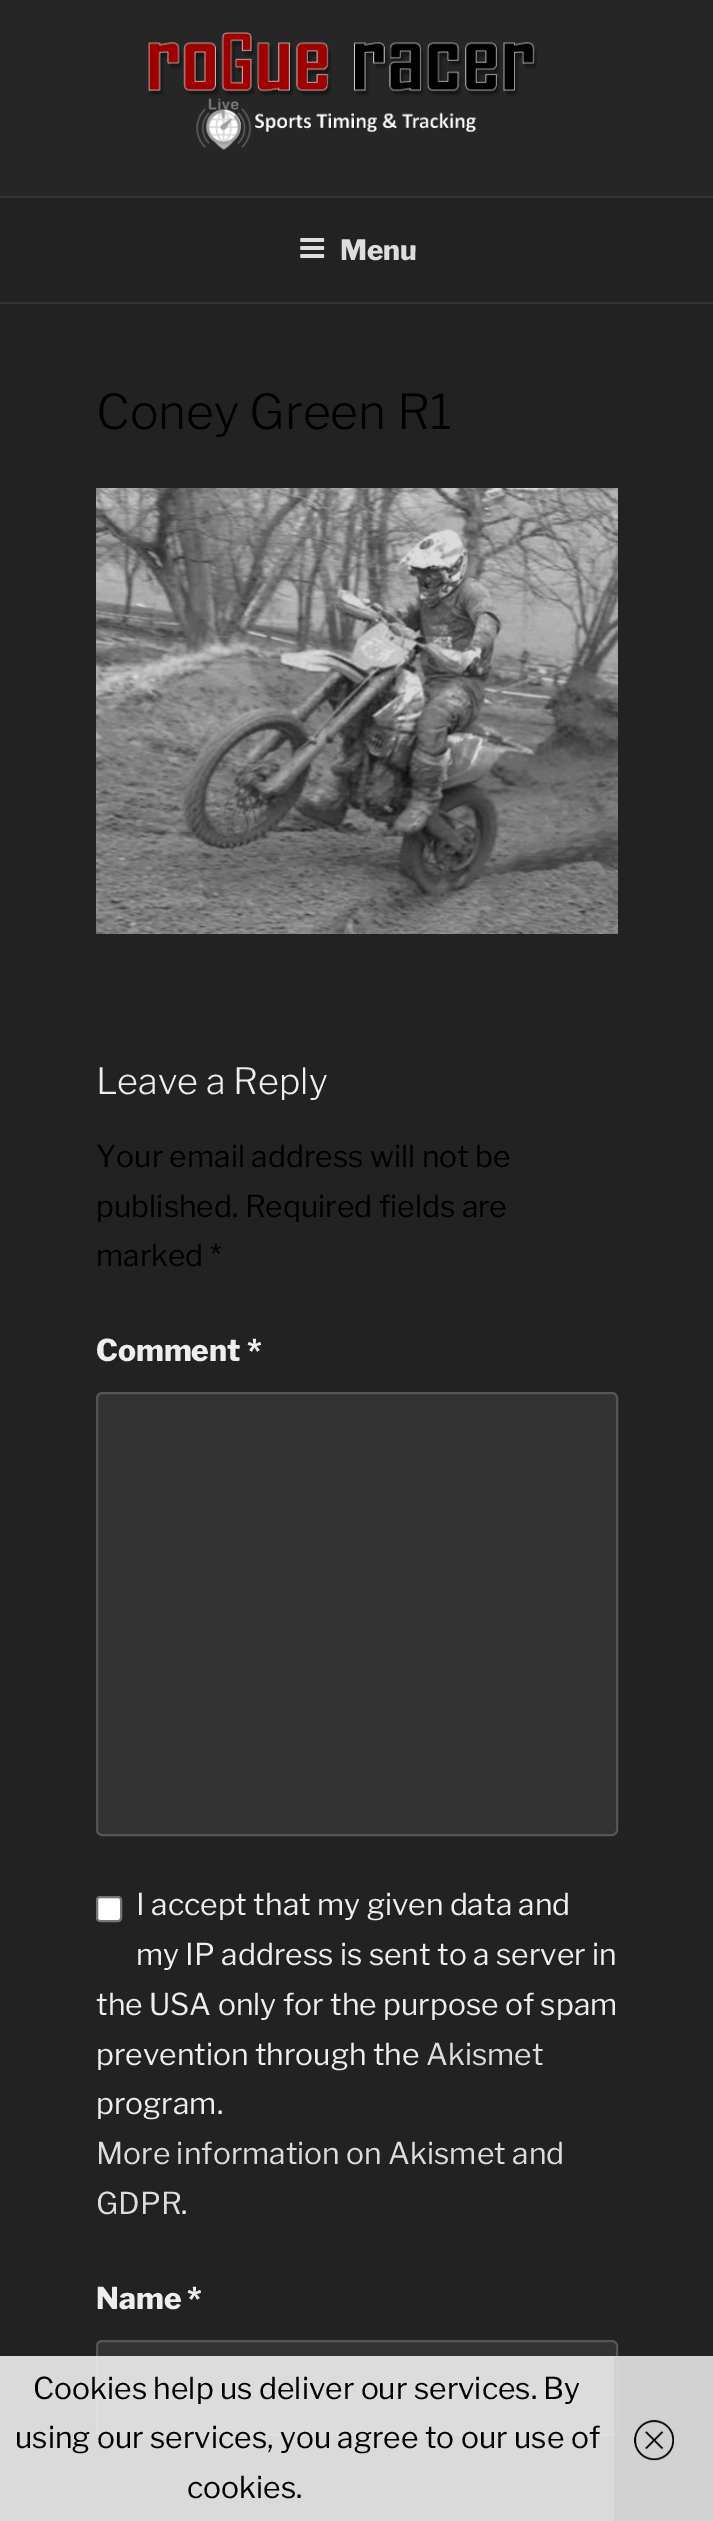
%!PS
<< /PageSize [713 2521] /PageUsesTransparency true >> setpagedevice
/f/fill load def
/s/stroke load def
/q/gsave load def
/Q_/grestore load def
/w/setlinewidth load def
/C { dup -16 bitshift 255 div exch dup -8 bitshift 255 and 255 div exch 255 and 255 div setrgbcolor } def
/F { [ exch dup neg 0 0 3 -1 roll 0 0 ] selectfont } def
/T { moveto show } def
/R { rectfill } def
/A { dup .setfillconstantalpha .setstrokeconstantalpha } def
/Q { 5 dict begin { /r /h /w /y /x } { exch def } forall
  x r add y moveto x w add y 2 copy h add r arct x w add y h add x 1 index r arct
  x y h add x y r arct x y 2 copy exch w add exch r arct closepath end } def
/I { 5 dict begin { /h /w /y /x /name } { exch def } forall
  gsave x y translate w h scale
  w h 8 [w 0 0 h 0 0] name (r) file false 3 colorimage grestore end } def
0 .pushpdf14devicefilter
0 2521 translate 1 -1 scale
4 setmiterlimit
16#222222 C
0 0 713 2521 R
16#262626 C
0 0 713 196 R
(1.rgb) 148 32 389 118 I
16#333333 C
0 196 713 2 R
0 302 713 2 R
(2.rgb) 300 238 25 20 I
/LibreFranklin-Thin 28 F
16#DDDDDD C
(Menu) 340 260 T
/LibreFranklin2-Thin 48 F
16#000000 C
(Coney Green R1) 96 429 T
(3.rgb) 96 488 522 446 I
/LibreFranklin2-Thin 36 F
16#EEEEEE C
(Leave a Reply) 96 1094 T
/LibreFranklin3-Thin 30 F
16#000000 C
(Your email address will not be) 96 1167 T
(published. Required fields are) 96 1217 T
(marked *) 96 1266 T
/LibreFranklin-Thin 30 F
16#EEEEEE C
(Comment *) 96 1361 T
16#333333 C
97 1393 520 442 5 Q q f Q_
16#555555 C
2 w
s
/LibreFranklin3-Thin 30 F
16#EEEEEE C
(I accept that my given data and) 136 1915 T
(my IP address is sent to a server in) 136 1965 T
(the USA only for the purpose of spam) 96 2015 T
(prevention through the) 96 2065 T
16#DDDDDD C
(Akismet) 426 2065 T
16#EEEEEE C
(program.) 96 2114 T
16#DDDDDD C
(More information on Akismet and) 96 2164 T
(GDPR) 96 2214 T
16#EEEEEE C
(.) 181 2214 T
16#FFFFFF C
97 1897 24 24 3 Q q f Q_
16#767676 C
s
/LibreFranklin-Thin 30 F
16#EEEEEE C
(Name *) 96 2309 T
16#333333 C
97 2341 520 94 5 Q q f Q_
16#555555 C
s
0.9 A
16#EEEEEE C
0 2356 713 165 R
/LibreFranklin3-Thin 30 F
1 A
16#000000 C
(Cookies help us deliver our services. By) 33 2399 T
(using our services, you agree to our use of) 15 2448 T
(cookies.) 187 2498 T
0.6 A
16#CCCCCC C
614 2356 99 165 R
1 A
(4.rgb) 634 2419 40 42 I
.poppdf14devicefilter showpage
